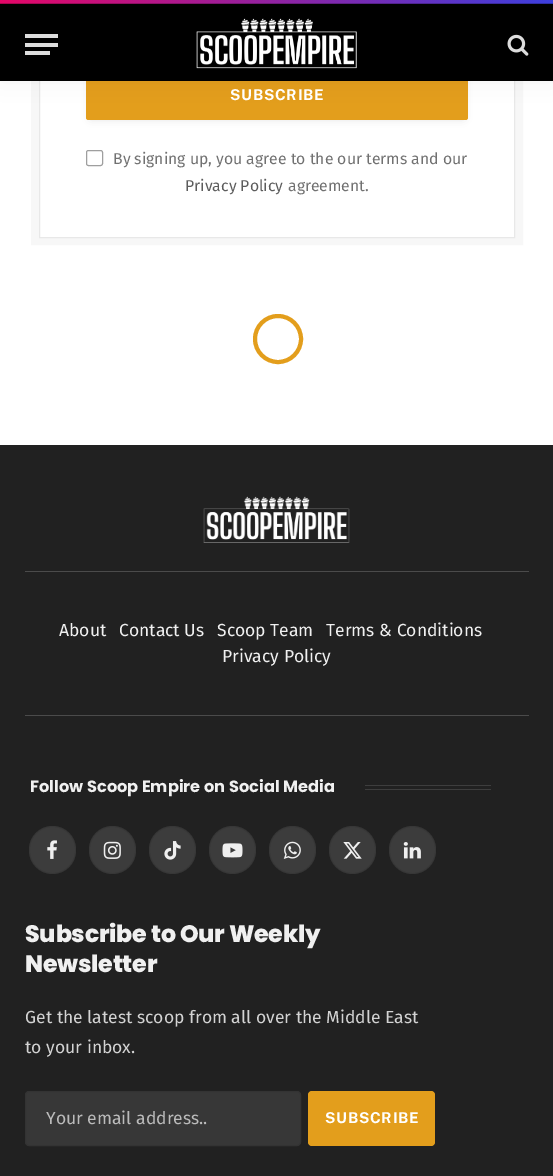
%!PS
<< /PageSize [553 1176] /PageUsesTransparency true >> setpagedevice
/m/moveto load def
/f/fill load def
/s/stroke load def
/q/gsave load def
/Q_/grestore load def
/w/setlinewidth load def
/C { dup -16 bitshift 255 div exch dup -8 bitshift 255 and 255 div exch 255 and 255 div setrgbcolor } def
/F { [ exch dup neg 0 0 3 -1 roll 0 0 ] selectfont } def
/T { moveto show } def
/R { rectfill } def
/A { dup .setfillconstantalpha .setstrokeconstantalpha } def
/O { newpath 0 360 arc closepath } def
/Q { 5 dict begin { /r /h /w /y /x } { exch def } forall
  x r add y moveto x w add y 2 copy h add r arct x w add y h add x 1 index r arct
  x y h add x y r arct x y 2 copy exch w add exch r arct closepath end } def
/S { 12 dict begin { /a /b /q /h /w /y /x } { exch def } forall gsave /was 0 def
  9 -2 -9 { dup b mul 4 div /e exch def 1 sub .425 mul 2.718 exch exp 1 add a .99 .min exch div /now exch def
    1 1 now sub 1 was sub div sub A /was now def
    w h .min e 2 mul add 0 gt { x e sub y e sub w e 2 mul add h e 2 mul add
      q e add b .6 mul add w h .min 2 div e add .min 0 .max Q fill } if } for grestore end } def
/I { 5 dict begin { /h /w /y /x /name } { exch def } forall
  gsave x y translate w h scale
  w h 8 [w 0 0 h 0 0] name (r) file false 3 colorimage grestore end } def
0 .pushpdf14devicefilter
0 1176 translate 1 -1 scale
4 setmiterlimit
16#FFFFFF C
0 0 553 1176 R
16#F7F7F7 C
8 w
35 -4 484 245 rectstroke
16#E8E8E8 C
1 w
39.5 -.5 475 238 rectstroke
16#000000 C
91 78 372 40 0 4.5 .16 S
16#E39E1C C
86 70 382 50 2.5 Q f
16#000000 C
0 0 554 81 0 12.5 .05 S
0 3 553 78 R
(1.rgb) 0 0 553 4 I
16#DDDDDD C
25 51 25 4 R
25 34 33 4 R
25 43 33 4 R
(2.rgb) 196 18 161 51 I
(3.rgb) 507 34 22 22 I
/PublicSans-Thin 15 F
16#FFFFFF C
230 100 m .75 0 (SUBSCRIBE) ashow
16#9F9F9F C
86.5 150.5 16 15 2 Q s
/FiraSans-Regular 15.75 F
16#717171 C
(By signing up, you agree to the our terms and our) 113 164 T
16#5C5C5C C
(Privacy Policy) 185 191 T
16#717171 C
(agreement.) 288 191 T
16#E39E1C C
4 w
278 339 23 O s
16#212121 C
0 445 553 731 R
(4.rgb) 203 496 147 47 I
16#4B4B4B C
25 571 504 1 R
/FiraSans-Regular 17.5 F
16#F0F0F0 C
(About) 59 636 T
(Contact Us) 119 636 T
(Scoop Team) 217 636 T
(Terms & Conditions) 326 636 T
(Privacy Policy) 222 662 T
16#4B4B4B C
25 715 504 1 R
/Poppins-Bold 16.25 F
16#F0F0F0 C
(Follow Scoop Empire on Social Media) 30 792 T
16#3E3E3E C
365 785 126 1 R
365 789 126 1 R
16#3C3C3C C
29 826 47 48 23.5 Q f
0.09 A
16#000000 C
1 w
29.5 826.5 46 47 23 Q s
1 A
(5.rgb) 47 840 10 19 I
16#3C3C3C C
89 826 47 48 23.5 Q f
0.09 A
16#000000 C
89.5 826.5 46 47 23 Q s
1 A
(6.rgb) 103 841 18 18 I
16#3C3C3C C
149 826 47 48 23.5 Q f
0.09 A
16#000000 C
149.5 826.5 46 47 23 Q s
1 A
(7.rgb) 164 841 17 19 I
16#3C3C3C C
209 826 47 48 23.5 Q f
0.09 A
16#000000 C
209.5 826.5 46 47 23 Q s
1 A
(8.rgb) 222 843 21 15 I
16#3C3C3C C
269 826 47 48 23.5 Q f
0.09 A
16#000000 C
269.5 826.5 46 47 23 Q s
1 A
(9.rgb) 283 841 18 18 I
16#3C3C3C C
329 826 47 48 23.5 Q f
0.09 A
16#000000 C
329.5 826.5 46 47 23 Q s
1 A
(10.rgb) 343 842 19 17 I
16#3C3C3C C
389 826 47 48 23.5 Q f
0.09 A
16#000000 C
389.5 826.5 46 47 23 Q s
1 A
(11.rgb) 403 842 18 17 I
/Poppins-ExtraBold 23.75 F
16#F0F0F0 C
25 942 m -.25 0 (Subscribe to Our Weekly) ashow
25 972 m -.25 0 (Newsletter) ashow
/FiraSans-Regular 17.5 F
16#D3D3D3 C
(Get the latest scoop from all over the Middle East) 25 1023 T
(to your inbox.) 25 1053 T
16#373737 C
25.5 1091.5 275 54 3.5 Q q f Q_
16#333333 C
s
16#BBBBBB C
(Your email address..) 46 1124 T
16#E39E1C C
308 1091 127 55 4 Q f
/PublicSans-Thin 15 F
16#FFFFFF C
325 1123 m .75 0 (SUBSCRIBE) ashow
.poppdf14devicefilter showpage
